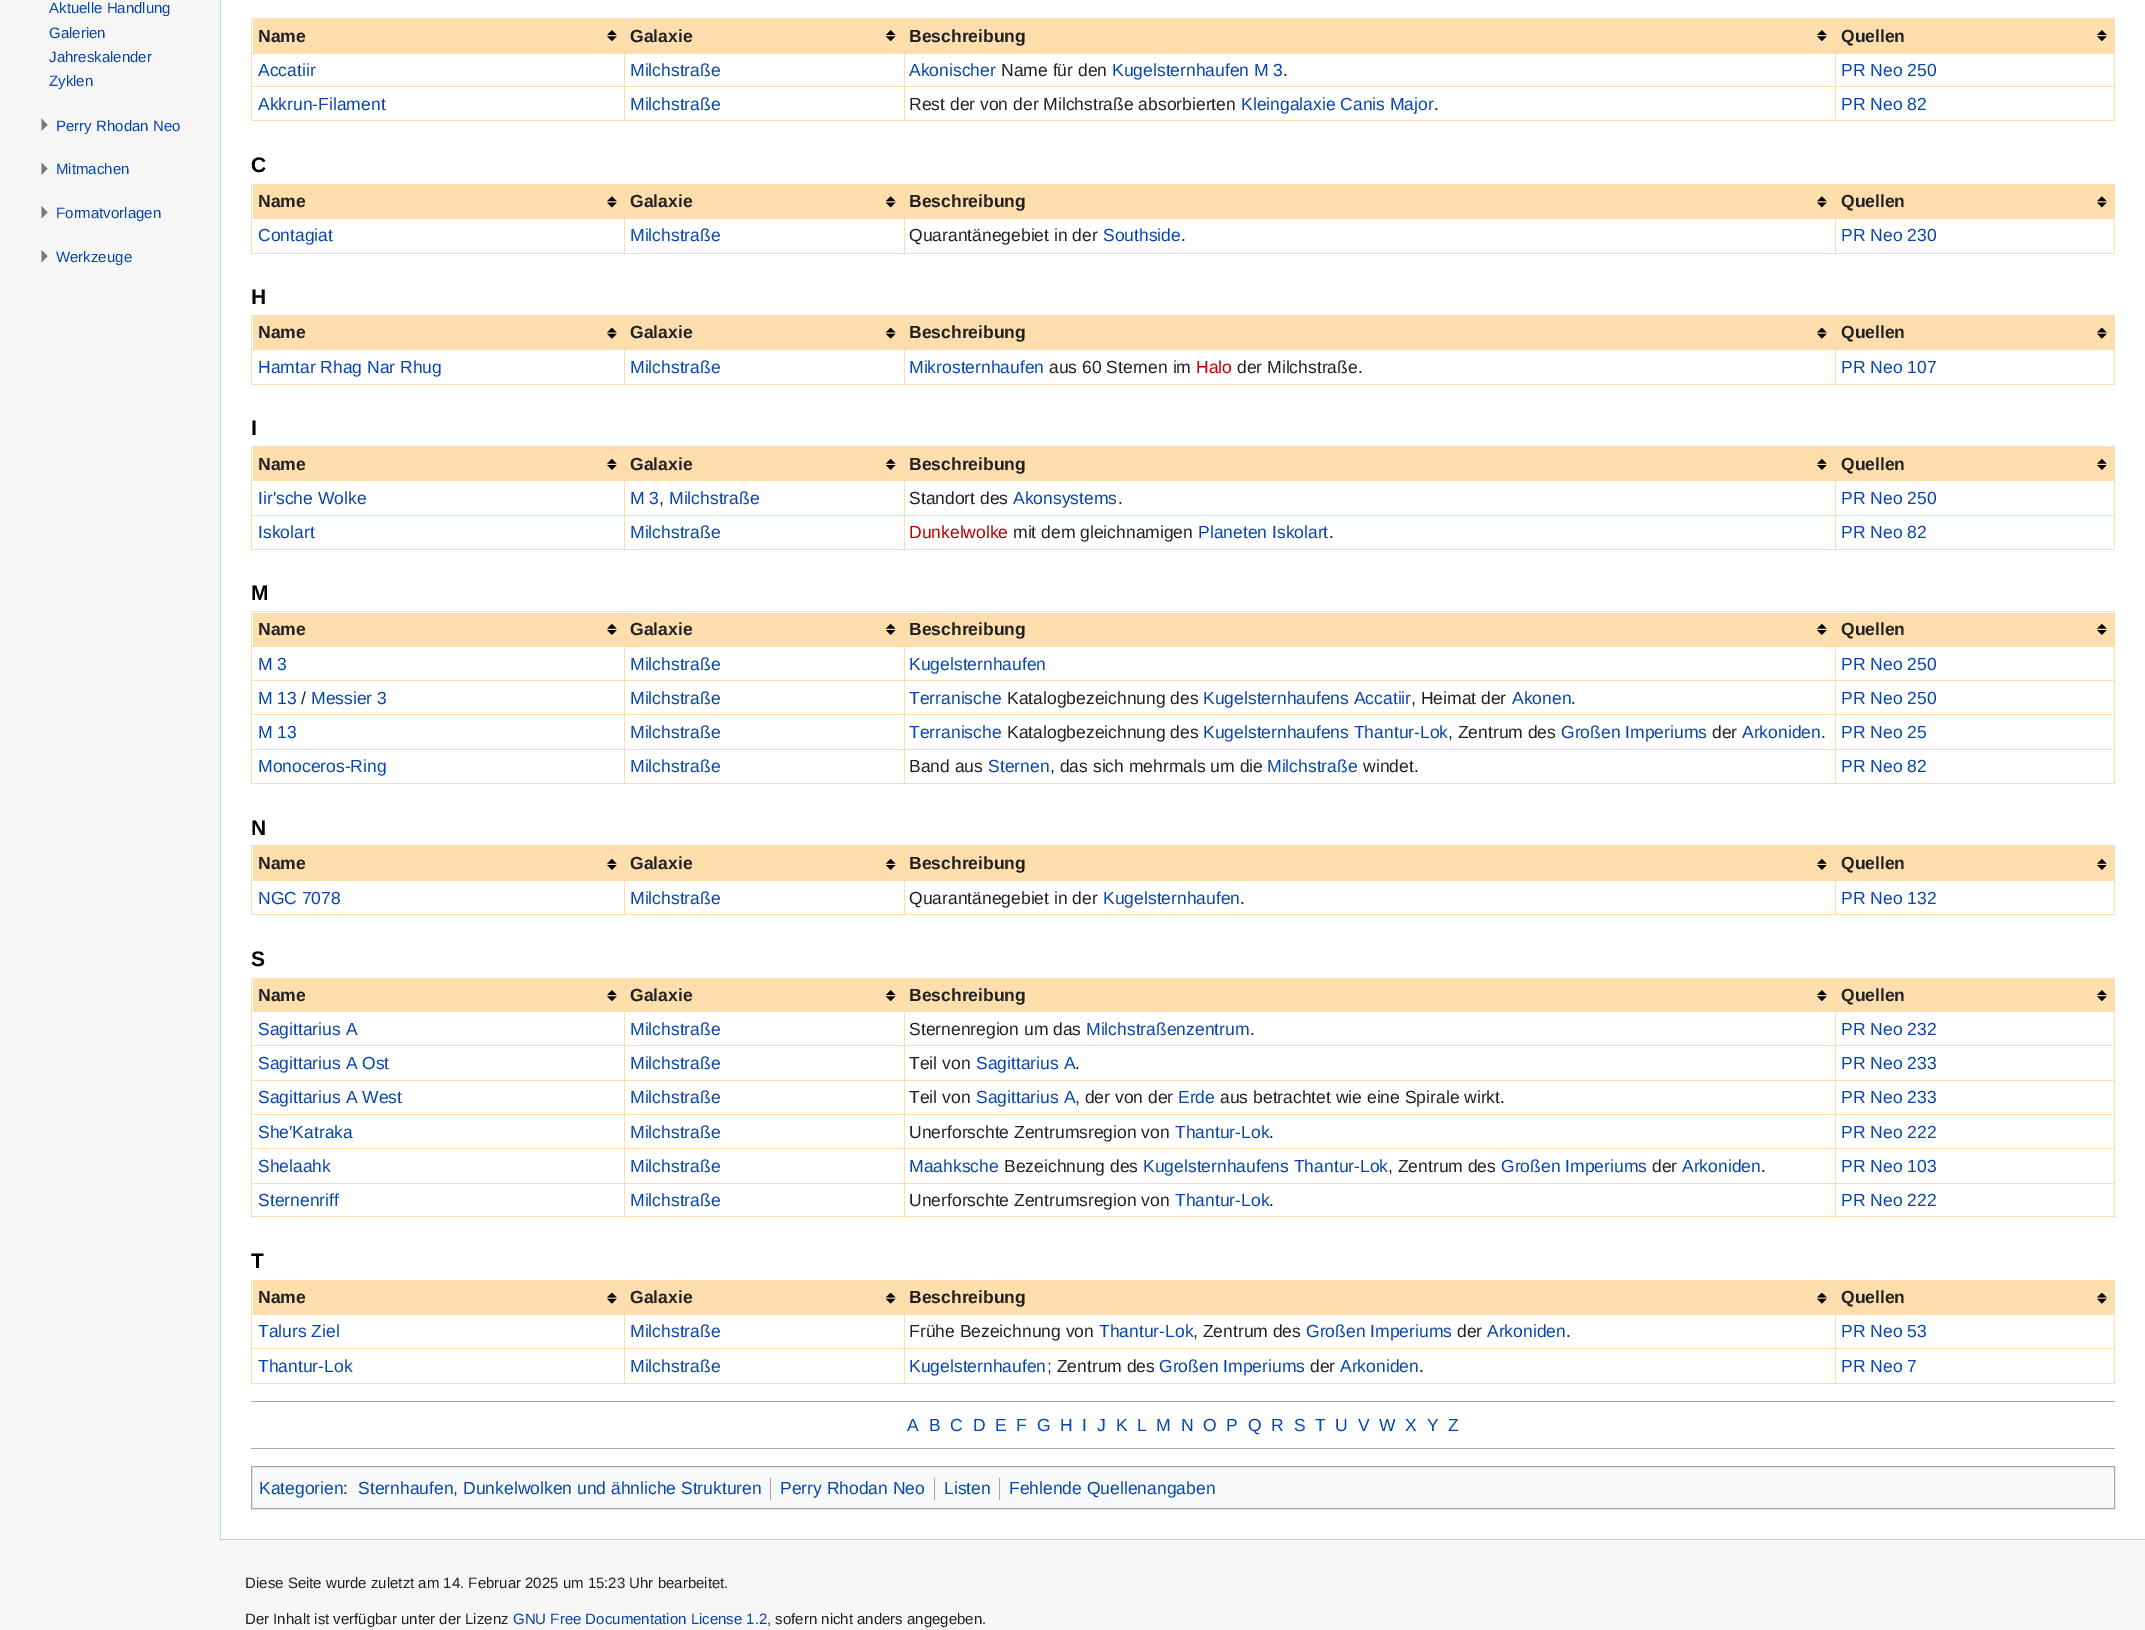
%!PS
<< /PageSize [2145 1630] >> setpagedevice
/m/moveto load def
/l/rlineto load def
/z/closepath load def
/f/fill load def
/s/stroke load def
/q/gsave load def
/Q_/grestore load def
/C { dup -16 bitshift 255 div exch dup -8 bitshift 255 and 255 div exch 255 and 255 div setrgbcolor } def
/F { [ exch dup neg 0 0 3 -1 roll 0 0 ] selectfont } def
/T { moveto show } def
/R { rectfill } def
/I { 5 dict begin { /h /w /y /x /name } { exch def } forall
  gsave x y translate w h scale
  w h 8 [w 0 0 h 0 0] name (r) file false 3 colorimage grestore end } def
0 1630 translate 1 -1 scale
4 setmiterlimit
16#F6F6F6 C
0 0 2145 1630 R
/LiberationSans-Regular 15 F
16#0645AD C
(Aktuelle Handlung) 49 13 T
(Galerien) 49 38 T
(Jahreskalender) 49 62 T
(Zyklen) 49 86 T
16#797979 C
41.5 118.5 m 6 6.5 l -6 6 l z f
16#0645AD C
(Perry Rhodan Neo) 56 131 T
16#797979 C
41.5 162.5 m 6 6 l -6 6.5 l z f
16#0645AD C
(Mitmachen) 56 174 T
16#797979 C
41.5 206 m 6 6.5 l -6 6 l z f
16#0645AD C
(Formatvorlagen) 56 218 T
16#797979 C
41.5 250 m 6 6 l -6 6.5 l z f
16#0645AD C
(Werkzeuge) 56 262 T
16#FFFFFF C
221 0 1924 1539 R
16#A7D7F9 C
220 1539 1925 1 R
220 0 1 1540 R
16#FFDEAD C
251 18 1864 1 R
2114 18 1 103 R
251 120 1864 1 R
251 18 1 103 R
253 19 1861 34 R
(1.rgb) 607 30 10 11 I
/LiberationSans-Bold 17.5 F
16#202122 C
(Name) 258 42 T
(2.rgb) 885 30 11 11 I
(Galaxie) 630 42 T
(1.rgb) 1817 30 10 11 I
(Beschreibung) 909 42 T
(1.rgb) 2097 30 10 11 I
(Quellen) 1841 42 T
16#FFDEAD C
1835 53 280 1 R
1835 86 280 1 R
1835 86 1 35 R
904 86 932 1 R
1835 53 1 35 R
904 53 932 1 R
904 86 1 35 R
624 86 281 1 R
904 53 1 35 R
624 53 281 1 R
624 86 1 35 R
251 86 374 1 R
624 53 1 35 R
251 53 374 1 R
/LiberationSans-Regular 17.5 F
16#0645AD C
(Accatiir) 258 76 T
(Milchstraße) 630 76 T
(Akonischer) 909 76 T
16#202122 C
(Name für den) 1001 76 T
16#0645AD C
(Kugelsternhaufen M 3) 1112 76 T
16#202122 C
(.) 1283 76 T
16#0645AD C
(PR Neo 250) 1841 76 T
(Akkrun-Filament) 258 110 T
(Milchstraße) 630 110 T
16#202122 C
(Rest der von der Milchstraße absorbierten) 909 110 T
16#0645AD C
(Kleingalaxie Canis Major) 1241 110 T
16#202122 C
(.) 1434 110 T
16#0645AD C
(PR Neo 82) 1841 110 T
/LiberationSans-Bold 21 F
16#000000 C
(C) 251 172 T
16#FFDEAD C
251 184 1864 1 R
2114 184 1 70 R
251 253 1864 1 R
251 184 1 70 R
253 185 372 33 R
(3.rgb) 607 196 10 12 I
/LiberationSans-Bold 17.5 F
16#202122 C
(Name) 258 207 T
16#FFDEAD C
625 185 1489 34 R
(4.rgb) 885 196 11 12 I
16#202122 C
(Galaxie) 630 207 T
(3.rgb) 1817 196 10 12 I
(Beschreibung) 909 207 T
(3.rgb) 2097 196 10 12 I
(Quellen) 1841 207 T
16#FFDEAD C
624 218 1 36 R
251 218 374 1 R
/LiberationSans-Regular 17.5 F
16#0645AD C
(Contagiat) 258 241 T
(Milchstraße) 630 241 T
16#FFDEAD C
904 218 1 36 R
16#202122 C
(Quarantänegebiet in der) 909 241 T
16#0645AD C
(Southside) 1103 241 T
16#202122 C
(.) 1181 241 T
16#FFDEAD C
1835 218 1 36 R
16#0645AD C
(PR Neo 230) 1841 241 T
/LiberationSans-Bold 21 F
16#000000 C
(H) 251 304 T
16#FFDEAD C
251 315 1864 1 R
2114 315 1 70 R
251 384 1864 1 R
251 315 1 70 R
253 316 372 33 R
(5.rgb) 607 328 10 11 I
/LiberationSans-Bold 17.5 F
16#202122 C
(Name) 258 338 T
16#FFDEAD C
625 316 1489 34 R
(6.rgb) 885 328 11 11 I
16#202122 C
(Galaxie) 630 338 T
(5.rgb) 1817 328 10 11 I
(Beschreibung) 909 338 T
(5.rgb) 2097 328 10 11 I
(Quellen) 1841 338 T
16#FFDEAD C
624 349 1 36 R
251 349 374 1 R
/LiberationSans-Regular 17.5 F
16#0645AD C
(Hamtar Rhag Nar Rhug) 258 373 T
(Milchstraße) 630 373 T
16#FFDEAD C
904 349 1 36 R
16#0645AD C
(Mikrosternhaufen) 909 373 T
16#202122 C
(aus 60 Sternen im) 1049 373 T
16#BA0000 C
(Halo) 1196 373 T
16#202122 C
(der Milchstraße.) 1237 373 T
16#FFDEAD C
1835 349 1 36 R
16#0645AD C
(PR Neo 107) 1841 373 T
/LiberationSans-Bold 21 F
16#000000 C
(I) 251 435 T
16#FFDEAD C
251 446 1864 1 R
2114 446 1 104 R
251 549 1864 1 R
251 446 1 104 R
253 447 372 33 R
(7.rgb) 607 459 10 11 I
/LiberationSans-Bold 17.5 F
16#202122 C
(Name) 258 470 T
16#FFDEAD C
625 447 1489 34 R
(8.rgb) 885 459 11 11 I
16#202122 C
(Galaxie) 630 470 T
(7.rgb) 1817 459 10 11 I
(Beschreibung) 909 470 T
(7.rgb) 2097 459 10 11 I
(Quellen) 1841 470 T
16#FFDEAD C
1835 515 280 1 R
1835 515 1 35 R
904 515 932 1 R
904 515 1 35 R
624 515 281 1 R
624 515 1 35 R
251 515 374 1 R
624 480 1 36 R
251 480 374 1 R
/LiberationSans-Regular 17.5 F
16#0645AD C
(Iir'sche Wolke) 258 504 T
(M 3) 630 504 T
16#202122 C
(,) 659 504 T
16#0645AD C
(Milchstraße) 669 504 T
16#FFDEAD C
904 480 1 36 R
16#202122 C
(Standort des) 909 504 T
16#0645AD C
(Akonsystems) 1013 504 T
16#202122 C
(.) 1118 504 T
16#FFDEAD C
1835 480 1 36 R
16#0645AD C
(PR Neo 250) 1841 504 T
(Iskolart) 258 538 T
(Milchstraße) 630 538 T
16#BA0000 C
(Dunkelwolke) 909 538 T
16#202122 C
(mit dem gleichnamigen) 1013 538 T
16#0645AD C
(Planeten Iskolart) 1198 538 T
16#202122 C
(.) 1329 538 T
16#0645AD C
(PR Neo 82) 1841 538 T
/LiberationSans-Bold 21 F
16#000000 C
(M) 251 600 T
16#FFDEAD C
251 611 1864 1 R
2114 611 1 173 R
251 783 1864 1 R
251 611 1 173 R
253 613 371 33 R
(7.rgb) 607 624 10 11 I
/LiberationSans-Bold 17.5 F
16#202122 C
(Name) 258 635 T
16#FFDEAD C
625 613 279 33 R
(8.rgb) 885 624 11 11 I
1835 646 280 1 R
1835 680 280 1 R
1835 714 280 1 R
1835 749 280 1 R
1835 749 1 35 R
904 749 932 1 R
1835 714 1 36 R
904 714 932 1 R
1835 680 1 35 R
904 680 932 1 R
1835 646 1 35 R
904 646 932 1 R
904 749 1 35 R
624 749 281 1 R
904 714 1 36 R
624 714 281 1 R
904 680 1 35 R
624 680 281 1 R
904 646 1 35 R
624 646 281 1 R
624 749 1 35 R
251 749 374 1 R
624 714 1 36 R
251 714 374 1 R
624 680 1 35 R
251 680 374 1 R
624 646 1 35 R
251 646 374 1 R
624 611 1 37 R
16#202122 C
(Galaxie) 630 635 T
16#FFDEAD C
905 613 930 33 R
(7.rgb) 1817 624 10 11 I
904 611 1 37 R
16#202122 C
(Beschreibung) 909 635 T
16#FFDEAD C
1836 613 278 33 R
(7.rgb) 2097 624 10 11 I
1835 611 1 37 R
16#202122 C
(Quellen) 1841 635 T
/LiberationSans-Regular 17.5 F
16#0645AD C
(M 3) 258 670 T
(Milchstraße) 630 670 T
(Kugelsternhaufen) 909 670 T
(PR Neo 250) 1841 670 T
(M 13) 258 704 T
16#202122 C
(/) 301 704 T
16#0645AD C
(Messier 3) 311 704 T
(Milchstraße) 630 704 T
(Terranische) 909 704 T
16#202122 C
(Katalogbezeichnung des) 1007 704 T
16#0645AD C
(Kugelsternhaufens Accatiir) 1203 704 T
16#202122 C
(, Heimat der) 1411 704 T
16#0645AD C
(Akonen) 1512 704 T
16#202122 C
(.) 1571 704 T
16#0645AD C
(PR Neo 250) 1841 704 T
(M 13) 258 738 T
(Milchstraße) 630 738 T
(Terranische) 909 738 T
16#202122 C
(Katalogbezeichnung des) 1007 738 T
16#0645AD C
(Kugelsternhaufens Thantur-Lok) 1203 738 T
16#202122 C
(, Zentrum des) 1448 738 T
16#0645AD C
(Großen Imperiums) 1561 738 T
16#202122 C
(der) 1712 738 T
16#0645AD C
(Arkoniden) 1742 738 T
16#202122 C
(.) 1821 738 T
16#0645AD C
(PR Neo 25) 1841 738 T
(Monoceros-Ring) 258 772 T
(Milchstraße) 630 772 T
16#202122 C
(Band aus) 909 772 T
16#0645AD C
(Sternen) 988 772 T
16#202122 C
(, das sich mehrmals um die) 1050 772 T
16#0645AD C
(Milchstraße) 1267 772 T
16#202122 C
(windet.) 1363 772 T
16#0645AD C
(PR Neo 82) 1841 772 T
/LiberationSans-Bold 21 F
16#000000 C
(N) 251 835 T
16#FFDEAD C
251 845 1864 1 R
2114 845 1 70 R
251 914 1864 1 R
251 845 1 70 R
253 846 1861 34 R
(7.rgb) 607 859 10 11 I
/LiberationSans-Bold 17.5 F
16#202122 C
(Name) 258 869 T
(8.rgb) 885 859 11 11 I
(Galaxie) 630 869 T
(7.rgb) 1817 859 10 11 I
(Beschreibung) 909 869 T
(7.rgb) 2097 859 10 11 I
(Quellen) 1841 869 T
16#FFDEAD C
1835 880 280 1 R
1835 880 1 35 R
904 880 932 1 R
904 880 1 35 R
624 880 281 1 R
624 880 1 35 R
251 880 374 1 R
/LiberationSans-Regular 17.5 F
16#0645AD C
(NGC 7078) 258 904 T
(Milchstraße) 630 904 T
16#202122 C
(Quarantänegebiet in der) 909 904 T
16#0645AD C
(Kugelsternhaufen) 1103 904 T
16#202122 C
(.) 1240 904 T
16#0645AD C
(PR Neo 132) 1841 904 T
/LiberationSans-Bold 21 F
16#000000 C
(S) 251 966 T
16#FFDEAD C
251 978 1864 1 R
2114 978 1 240 R
251 1216 1864 1 R
251 978 1 240 R
253 979 1861 32 R
(1.rgb) 607 990 10 11 I
/LiberationSans-Bold 17.5 F
16#202122 C
(Name) 258 1001 T
(2.rgb) 885 990 11 11 I
(Galaxie) 630 1001 T
(1.rgb) 1817 990 10 11 I
(Beschreibung) 909 1001 T
(1.rgb) 2097 990 10 11 I
(Quellen) 1841 1001 T
16#FFDEAD C
1835 1011 280 1 R
1835 1045 280 1 R
1835 1080 280 1 R
1835 1114 280 1 R
1835 1148 280 1 R
1835 1183 280 1 R
1835 1183 1 35 R
904 1183 932 1 R
1835 1148 1 36 R
904 1148 932 1 R
1835 1114 1 35 R
904 1114 932 1 R
1835 1080 1 35 R
904 1080 932 1 R
1835 1045 1 36 R
904 1045 932 1 R
1835 1011 1 35 R
904 1011 932 1 R
904 1183 1 35 R
624 1183 281 1 R
904 1148 1 36 R
624 1148 281 1 R
904 1114 1 35 R
624 1114 281 1 R
904 1080 1 35 R
624 1080 281 1 R
904 1045 1 36 R
624 1045 281 1 R
904 1011 1 35 R
624 1011 281 1 R
624 1183 1 35 R
251 1183 374 1 R
624 1148 1 36 R
251 1148 374 1 R
624 1114 1 35 R
251 1114 374 1 R
624 1080 1 35 R
251 1080 374 1 R
624 1045 1 36 R
251 1045 374 1 R
624 1011 1 35 R
251 1011 374 1 R
/LiberationSans-Regular 17.5 F
16#0645AD C
(Sagittarius A) 258 1035 T
(Milchstraße) 630 1035 T
16#202122 C
(Sternenregion um das) 909 1035 T
16#0645AD C
(Milchstraßenzentrum) 1086 1035 T
16#202122 C
(.) 1250 1035 T
16#0645AD C
(PR Neo 232) 1841 1035 T
(Sagittarius A Ost) 258 1069 T
(Milchstraße) 630 1069 T
16#202122 C
(Teil von) 909 1069 T
16#0645AD C
(Sagittarius A) 976 1069 T
16#202122 C
(.) 1075 1069 T
16#0645AD C
(PR Neo 233) 1841 1069 T
(Sagittarius A West) 258 1103 T
(Milchstraße) 630 1103 T
16#202122 C
(Teil von) 909 1103 T
16#0645AD C
(Sagittarius A) 976 1103 T
16#202122 C
(, der von der) 1075 1103 T
16#0645AD C
(Erde) 1178 1103 T
16#202122 C
(aus betrachtet wie eine Spirale wirkt.) 1220 1103 T
16#0645AD C
(PR Neo 233) 1841 1103 T
(She'Katraka) 258 1138 T
(Milchstraße) 630 1138 T
16#202122 C
(Unerforschte Zentrumsregion von) 909 1138 T
16#0645AD C
(Thantur-Lok) 1175 1138 T
16#202122 C
(.) 1269 1138 T
16#0645AD C
(PR Neo 222) 1841 1138 T
(Shelaahk) 258 1172 T
(Milchstraße) 630 1172 T
(Maahksche) 909 1172 T
16#202122 C
(Bezeichnung des) 1004 1172 T
16#0645AD C
(Kugelsternhaufens Thantur-Lok) 1143 1172 T
16#202122 C
(, Zentrum des) 1388 1172 T
16#0645AD C
(Großen Imperiums) 1501 1172 T
16#202122 C
(der) 1652 1172 T
16#0645AD C
(Arkoniden) 1682 1172 T
16#202122 C
(.) 1761 1172 T
16#0645AD C
(PR Neo 103) 1841 1172 T
(Sternenriff) 258 1206 T
(Milchstraße) 630 1206 T
16#202122 C
(Unerforschte Zentrumsregion von) 909 1206 T
16#0645AD C
(Thantur-Lok) 1175 1206 T
16#202122 C
(.) 1269 1206 T
16#0645AD C
(PR Neo 222) 1841 1206 T
/LiberationSans-Bold 21 F
16#000000 C
(T) 251 1268 T
16#FFDEAD C
251 1280 1864 1 R
2114 1280 1 104 R
251 1383 1864 1 R
251 1280 1 104 R
253 1281 1861 33 R
(5.rgb) 607 1293 10 11 I
/LiberationSans-Bold 17.5 F
16#202122 C
(Name) 258 1303 T
(6.rgb) 885 1293 11 11 I
(Galaxie) 630 1303 T
(5.rgb) 1817 1293 10 11 I
(Beschreibung) 909 1303 T
(5.rgb) 2097 1293 10 11 I
(Quellen) 1841 1303 T
16#FFDEAD C
1835 1314 280 1 R
1835 1348 280 1 R
1835 1348 1 36 R
904 1348 932 1 R
1835 1314 1 35 R
904 1314 932 1 R
904 1348 1 36 R
624 1348 281 1 R
904 1314 1 35 R
624 1314 281 1 R
624 1348 1 36 R
251 1348 374 1 R
624 1314 1 35 R
251 1314 374 1 R
/LiberationSans-Regular 17.5 F
16#0645AD C
(Talurs Ziel) 258 1337 T
(Milchstraße) 630 1337 T
16#202122 C
(Frühe Bezeichnung von) 909 1337 T
16#0645AD C
(Thantur-Lok) 1099 1337 T
16#202122 C
(, Zentrum des) 1193 1337 T
16#0645AD C
(Großen Imperiums) 1306 1337 T
16#202122 C
(der) 1457 1337 T
16#0645AD C
(Arkoniden) 1487 1337 T
16#202122 C
(.) 1566 1337 T
16#0645AD C
(PR Neo 53) 1841 1337 T
(Thantur-Lok) 258 1372 T
(Milchstraße) 630 1372 T
(Kugelsternhaufen) 909 1372 T
16#202122 C
(; Zentrum des) 1047 1372 T
16#0645AD C
(Großen Imperiums) 1159 1372 T
16#202122 C
(der) 1310 1372 T
16#0645AD C
(Arkoniden) 1340 1372 T
16#202122 C
(.) 1419 1372 T
16#0645AD C
(PR Neo 7) 1841 1372 T
16#A2A9B1 C
251 1401 1864 1 R
16#0645AD C
(A) 907 1431 T
(B) 929 1431 T
(C) 950 1431 T
(D) 973 1431 T
(E) 995 1431 T
(F) 1016 1431 T
(G) 1037 1431 T
(H) 1060 1431 T
(I) 1082 1431 T
(J) 1097 1431 T
(K) 1116 1431 T
(L) 1137 1431 T
(M) 1156 1431 T
(N) 1181 1431 T
(O) 1203 1431 T
(P) 1226 1431 T
(Q) 1248 1431 T
(R) 1271 1431 T
(S) 1294 1431 T
(T) 1315 1431 T
(U) 1335 1431 T
(V) 1358 1431 T
(W) 1379 1431 T
(X) 1405 1431 T
(Y) 1427 1431 T
(Z) 1448 1431 T
16#A2A9B1 C
251 1448 1864 1 R
16#F8F9FA C
251.5 1466.5 m 1863 0 l 0 42 l -1863 0 l z q f Q_
16#A2A9B1 C
s
16#0645AD C
(Kategorien) 259 1494 T
16#202122 C
(:) 343 1494 T
16#0645AD C
(Sternhaufen, Dunkelwolken und ähnliche Strukturen) 358 1494 T
16#A2A9B1 C
770 1478 1 22 R
16#0645AD C
(Perry Rhodan Neo) 780 1494 T
16#A2A9B1 C
934 1478 1 22 R
16#0645AD C
(Listen) 944 1494 T
16#A2A9B1 C
999 1478 1 22 R
16#0645AD C
(Fehlende Quellenangaben) 1009 1494 T
/LiberationSans-Regular 15 F
16#202122 C
(Diese Seite wurde zuletzt am 14. Februar 2025 um 15:23 Uhr bearbeitet.) 245 1588 T
(Der Inhalt ist verfügbar unter der Lizenz) 245 1624 T
16#0645AD C
(GNU Free Documentation License 1.2) 513 1624 T
16#202122 C
(, sofern nicht anders angegeben.) 767 1624 T
showpage
